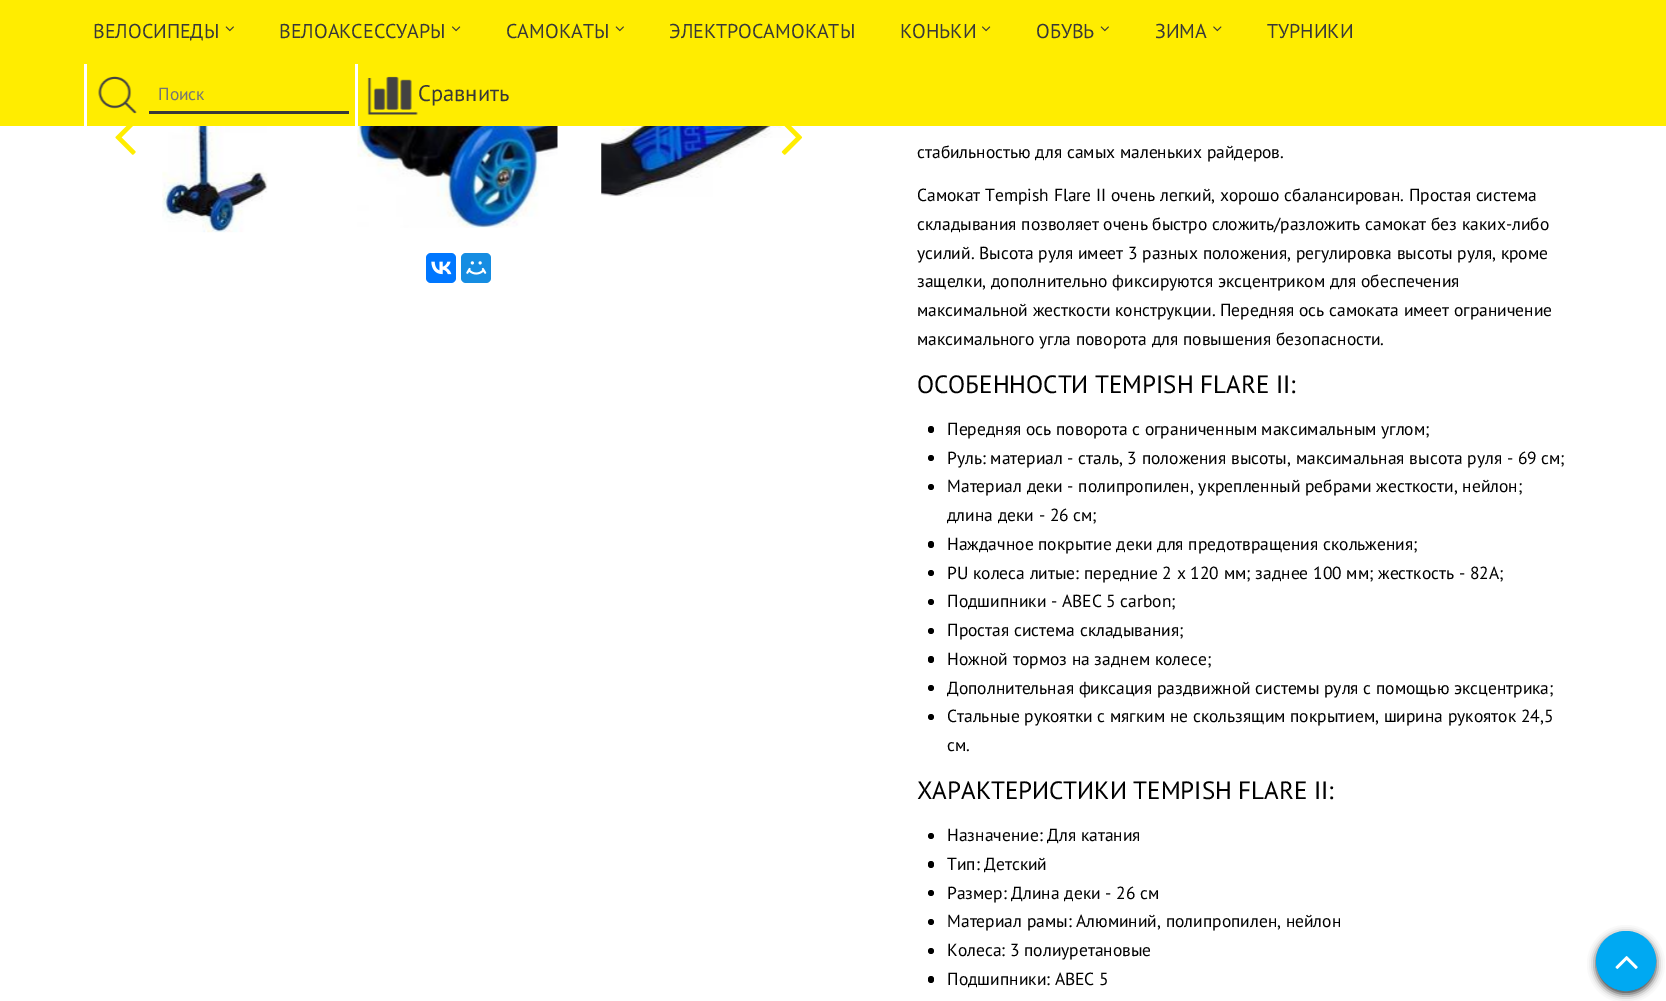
%!PS
<< /PageSize [1666 1001] /PageUsesTransparency true >> setpagedevice
/f/fill load def
/s/stroke load def
/q/gsave load def
/Q_/grestore load def
/C { dup -16 bitshift 255 div exch dup -8 bitshift 255 and 255 div exch 255 and 255 div setrgbcolor } def
/F { [ exch dup neg 0 0 3 -1 roll 0 0 ] selectfont } def
/T { moveto show } def
/R { rectfill } def
/A { dup .setfillconstantalpha .setstrokeconstantalpha } def
/O { newpath 0 360 arc closepath } def
/Q { 5 dict begin { /r /h /w /y /x } { exch def } forall
  x r add y moveto x w add y 2 copy h add r arct x w add y h add x 1 index r arct
  x y h add x y r arct x y 2 copy exch w add exch r arct closepath end } def
/S { 12 dict begin { /a /b /q /h /w /y /x } { exch def } forall gsave /was 0 def
  9 -2 -9 { dup b mul 4 div /e exch def 1 sub .425 mul 2.718 exch exp 1 add a .99 .min exch div /now exch def
    1 1 now sub 1 was sub div sub A /was now def
    w h .min e 2 mul add 0 gt { x e sub y e sub w e 2 mul add h e 2 mul add
      q e add b .6 mul add w h .min 2 div e add .min 0 .max Q fill } if } for grestore end } def
/I { 5 dict begin { /h /w /y /x /name } { exch def } forall
  gsave x y translate w h scale
  w h 8 [w 0 0 h 0 0] name (r) file false 3 colorimage grestore end } def
0 .pushpdf14devicefilter
0 1001 translate 1 -1 scale
4 setmiterlimit
16#FFFFFF C
0 0 1666 1001 R
16#FFED00 C
0 0 1666 126 R
/PTSans-Regular 20 F
16#383838 C
(ВЕЛОСИПЕДЫ) 93 38 T
(1.rgb) 225 26 9 6 I
(ВЕЛОАКСЕССУАРЫ) 279 38 T
(2.rgb) 452 26 9 6 I
(САМОКАТЫ) 506 38 T
(1.rgb) 615 26 9 6 I
(ЭЛЕКТРОСАМОКАТЫ) 669 38 T
(КОНЬКИ) 900 38 T
(2.rgb) 982 26 9 6 I
(ОБУВЬ) 1036 38 T
(1.rgb) 1100 26 9 6 I
(ЗИМА) 1155 38 T
(3.rgb) 1213 26 9 6 I
(ТУРНИКИ) 1267 38 T
16#FFFFFF C
355 64 3 62 R
84 64 3 62 R
(4.rgb) 98 76 39 38 I
16#383838 C
149 111 200 3 R
/PTSans-Regular 17.5 F
16#757575 C
(Поиск) 158 100 T
(5.rgb) 367 76 51 39 I
/PTSans-Regular 22.5 F
16#383838 C
(Сравнить) 418 101 T
(6.rgb) 115 126 21 29 I
(10.rgb) 601 126 201 71 I
(7.rgb) 781 126 22 29 I
(8.rgb) 162 126 106 107 I
(9.rgb) 357 126 201 102 I
16#0077FF C
426 253 30 30 5 Q f
(11.rgb) 431 261 21 14 I
16#168DE2 C
461 253 30 30 5 Q f
(12.rgb) 466 261 21 14 I
/PTSans-Regular 17.5 F
16#000000 C
(стабильностью для самых маленьких райдеров.) 917 158 T
(Самокат Tempish Flare II очень легкий, хорошо сбалансирован. Простая система) 917 201 T
(складывания позволяет очень быстро сложить/разложить самокат без каких-либо) 917 230 T
(усилий. Высота руля имеет 3 разных положения, регулировка высоты руля, кроме) 917 259 T
(защелки, дополнительно фиксируются эксцентриком для обеспечения) 917 287 T
(максимальной жесткости конструкции. Передняя ось самоката имеет ограничение) 917 316 T
(максимального угла поворота для повышения безопасности.) 917 345 T
/PTSans-Regular 25 F
(ОСОБЕННОСТИ TEMPISH FLARE II:) 917 393 T
928 426 6 7 3 Q f
/PTSans-Regular 17.5 F
(Передняя ось поворота с ограниченным максимальным углом;) 947 435 T
931 458 3 O f
(Руль: материал - сталь, 3 положения высоты, максимальная высота руля - 69 см;) 947 464 T
931 487 3 O f
(Материал деки - полипропилен, укрепленный ребрами жесткости, нейлон;) 947 492 T
(длина деки - 26 см;) 947 521 T
928 541 6 7 3 Q f
(Наждачное покрытие деки для предотвращения скольжения;) 947 550 T
931 573 3 O f
(PU колеса литые: передние 2 х 120 мм; заднее 100 мм; жесткость - 82А;) 947 579 T
931 602 3 O f
(Подшипники - АВЕС 5 carbon;) 947 607 T
931 631 3 O f
(Простая система складывания;) 947 636 T
928 656 6 7 3 Q f
(Ножной тормоз на заднем колесе;) 947 665 T
931 688 3 O f
(Дополнительная фиксация раздвижной системы руля с помощью эксцентрика;) 947 694 T
931 717 3 O f
(Стальные рукоятки с мягким не скользящим покрытием, ширина рукояток 24,5) 947 722 T
(см.) 947 751 T
/PTSans-Regular 25 F
(ХАРАКТЕРИСТИКИ TEMPISH FLARE II:) 917 799 T
931 836 3 O f
/PTSans-Regular 17.5 F
(Назначение: Для катания) 947 841 T
928 861 6 7 3 Q f
(Тип: Детский) 947 870 T
931 893 3 O f
(Размер: Длина деки - 26 см) 947 899 T
931 922 3 O f
(Материал рамы: Алюминий, полипропилен, нейлон) 947 927 T
931 951 3 O f
(Колеса: 3 полиуретановые) 947 956 T
928 976 6 7 3 Q f
(Подшипники: ABEC 5) 947 985 T
16#333333 C
1596 934 60 60 30 4 1 S
16#00A9F2 C
1626 961 29.5 O q f Q_
s
(13.rgb) 1615 956 23 13 I
.poppdf14devicefilter showpage
